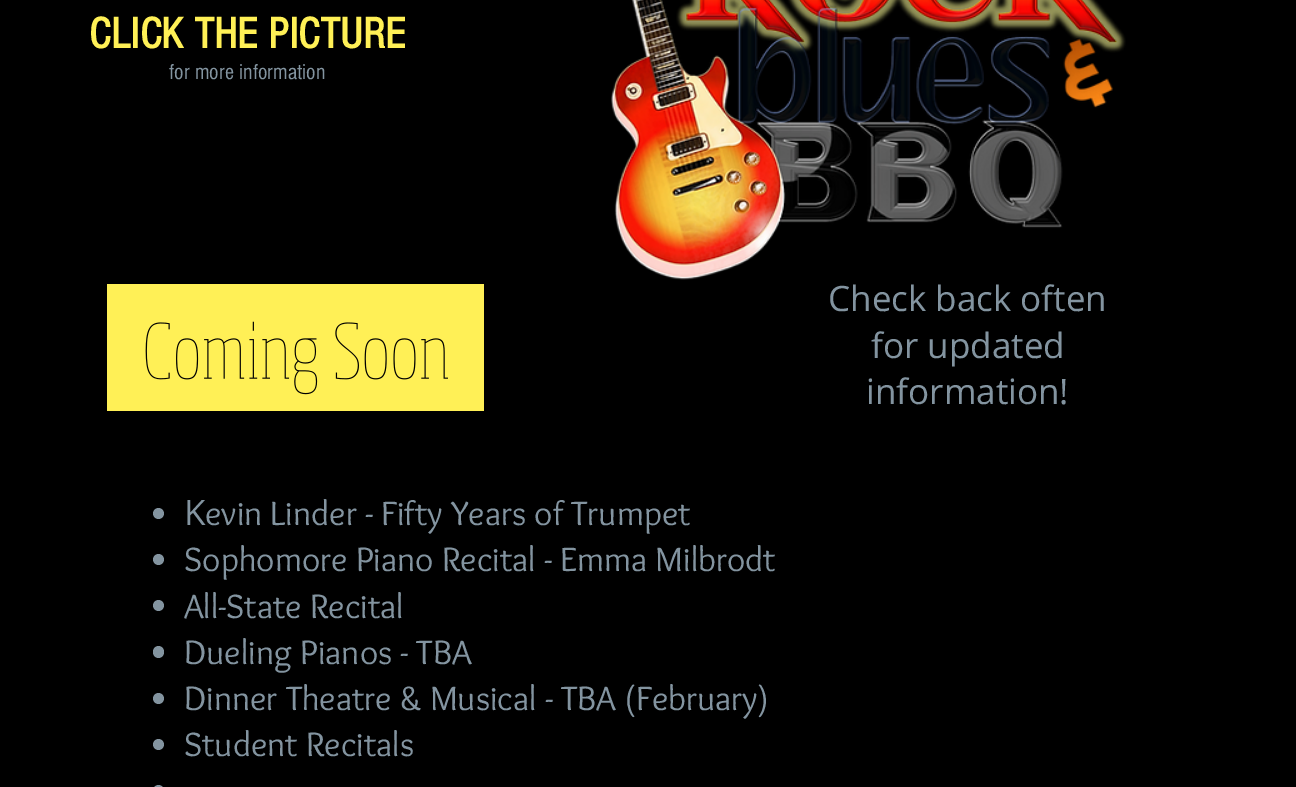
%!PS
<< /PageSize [1296 787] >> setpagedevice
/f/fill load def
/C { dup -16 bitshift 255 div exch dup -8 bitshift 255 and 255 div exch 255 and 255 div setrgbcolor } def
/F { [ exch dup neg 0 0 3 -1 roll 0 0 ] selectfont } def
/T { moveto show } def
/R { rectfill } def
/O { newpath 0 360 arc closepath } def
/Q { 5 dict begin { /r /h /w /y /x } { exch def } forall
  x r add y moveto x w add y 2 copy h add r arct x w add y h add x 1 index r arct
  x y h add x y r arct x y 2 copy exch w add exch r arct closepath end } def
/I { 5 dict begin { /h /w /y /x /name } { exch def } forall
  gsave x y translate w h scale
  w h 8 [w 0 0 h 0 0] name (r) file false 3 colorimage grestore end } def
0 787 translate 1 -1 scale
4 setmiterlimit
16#000000 C
0 0 1296 787 R
/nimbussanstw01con-Bold 45 F
16#FFF056 C
(CLICK THE PICTURE) 89 48 T
/nimbussanstw01con-Regular 22.5 F
16#8394A0 C
(for more information) 169 79 T
(1.rgb) 611 0 515 280 I
16#FFF056 C
107 284 377 127 R
/OpenSans-Regular 35 F
16#8394A0 C
(Check back often) 828 311 T
(for updated) 871 358 T
(information!) 866 404 T
(2.rgb) 145 321 303 74 I
158.5 513.5 5.5 O f
(K) 184 525 T
/Overlock-Regular 35 F
(evin Linder - Fifty Years of Trumpet) 205 525 T
158.5 559.5 5.5 O f
(Sophomore Piano Recital - Emma Milbrodt) 184 571 T
158.5 605.5 5.5 O f
(All-State Recital) 184 618 T
153 646 11 12 5.5 Q f
(Dueling Pianos - TBA) 184 664 T
158.5 698.5 5.5 O f
(Dinner Theatre & Musical - TBA \(February\)) 184 710 T
158.5 744.5 5.5 O f
(Student Recitals) 184 756 T
153 785 11 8 5.5 Q f
showpage
